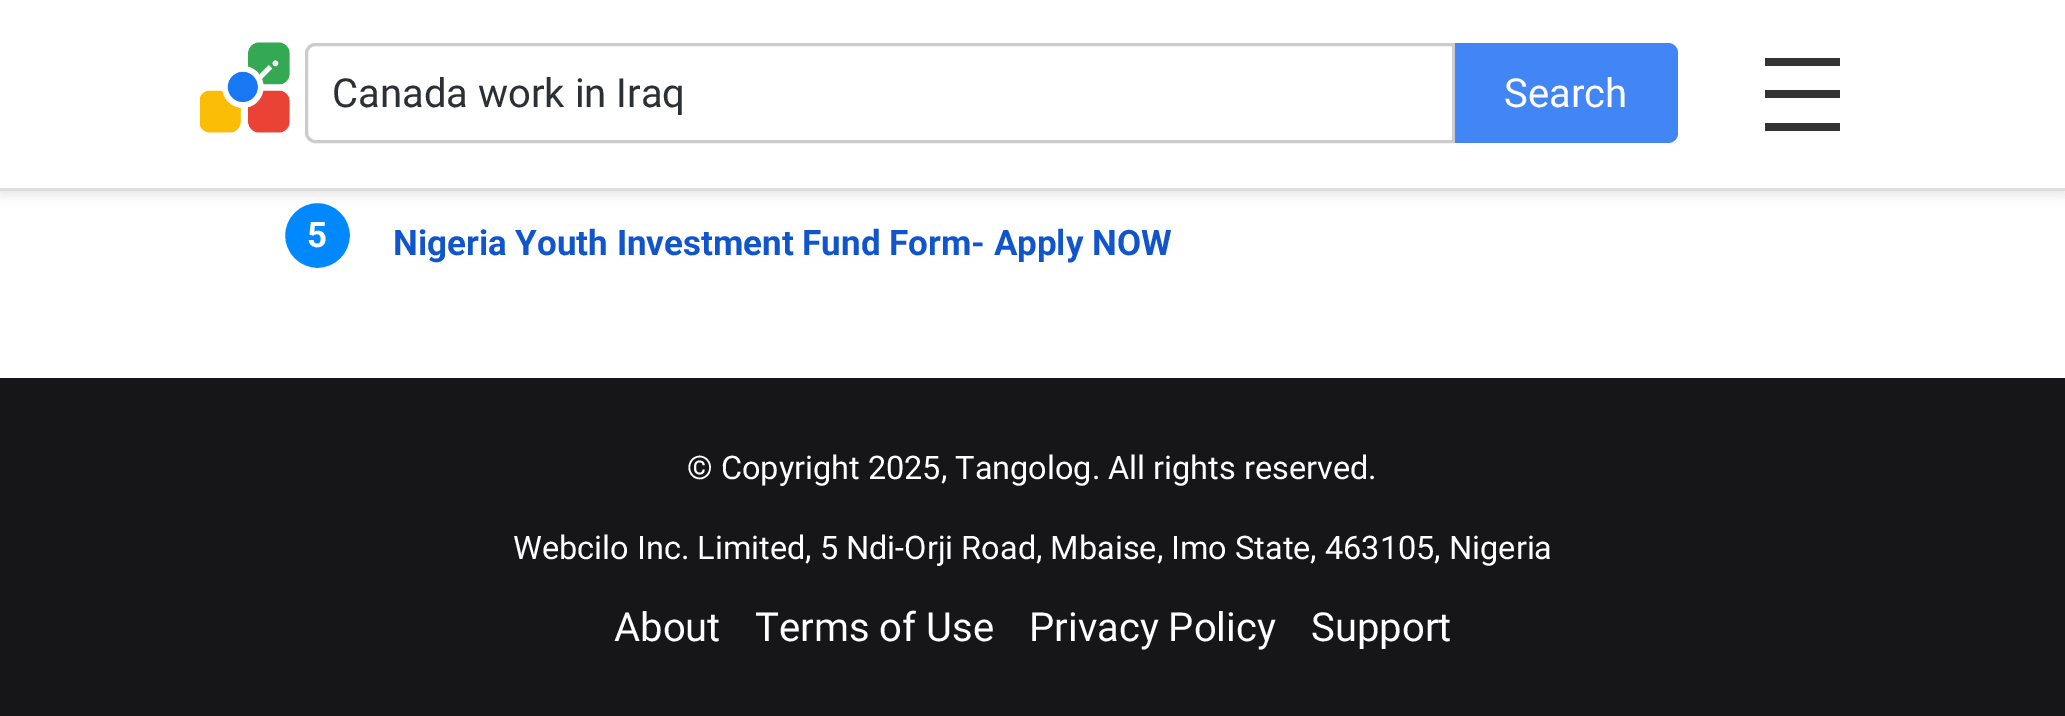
%!PS
<< /PageSize [2065 716] /PageUsesTransparency true >> setpagedevice
/m/moveto load def
/l/rlineto load def
/c/rcurveto load def
/z/closepath load def
/f/fill load def
/s/stroke load def
/q/gsave load def
/Q_/grestore load def
/w/setlinewidth load def
/C { dup -16 bitshift 255 div exch dup -8 bitshift 255 and 255 div exch 255 and 255 div setrgbcolor } def
/F { [ exch dup neg 0 0 3 -1 roll 0 0 ] selectfont } def
/T { moveto show } def
/R { rectfill } def
/A { dup .setfillconstantalpha .setstrokeconstantalpha } def
/O { newpath 0 360 arc closepath } def
/Q { 5 dict begin { /r /h /w /y /x } { exch def } forall
  x r add y moveto x w add y 2 copy h add r arct x w add y h add x 1 index r arct
  x y h add x y r arct x y 2 copy exch w add exch r arct closepath end } def
/S { 12 dict begin { /a /b /q /h /w /y /x } { exch def } forall gsave /was 0 def
  9 -2 -9 { dup b mul 4 div /e exch def 1 sub .425 mul 2.718 exch exp 1 add a .99 .min exch div /now exch def
    1 1 now sub 1 was sub div sub A /was now def
    w h .min e 2 mul add 0 gt { x e sub y e sub w e 2 mul add h e 2 mul add
      q e add b .6 mul add w h .min 2 div e add .min 0 .max Q fill } if } for grestore end } def
/I { 5 dict begin { /h /w /y /x /name } { exch def } forall
  gsave x y translate w h scale
  w h 8 [w 0 0 h 0 0] name (r) file false 3 colorimage grestore end } def
0 .pushpdf14devicefilter
0 716 translate 1 -1 scale
4 setmiterlimit
16#FFFFFF C
0 0 2065 716 R
16#0088FF C
317.5 235.5 35 O q f Q_
16#FFFFFF C
5 w
s
16#000000 C
0 5 2065 190 0 6 .1 S
16#FFFFFF C
0 0 2065 188 R
16#DDDDDD C
0 188 2065 3 R
(1.rgb) 200 42 90 91 I
16#CCCCCC C
3 w
315 44.5 m 1138.5 0 l 0 97 l -1138.5 0 l -4.5 0 -8.5 -4 -8.5 -8.5 c 0 -80 l 0 -4.5 4 -8.5 8.5 -8.5 c z s
/Roboto-Regular 40 F
16#2C2F34 C
(Canada work in Iraq) 332 107 T
16#4285F4 C
1455 43 m 213 0 l 5.5 0 10 4.5 10 10 c 0 80 l 0 5.5 -4.5 10 -10 10 c -213 0 l z f
16#FFFFFF C
(Search) 1504 107 T
16#333333 C
1765 58 75 8 R
1765 90 75 8 R
1765 123 75 8 R
/Roboto-Bold 35 F
16#FFFFFF C
(5) 307 247 T
16#1155CC C
(Nigeria Youth Investment Fund Form- Apply NOW) 393 255 T
16#161619 C
0 378 2065 338 R
/Roboto-Regular 32.5 F
16#FFFFFF C
(© Copyright 2025, Tangolog. All rights reserved.) 687 479 T
(Webcilo Inc. Limited, 5 Ndi-Orji Road, Mbaise, Imo State, 463105, Nigeria) 513 559 T
/Roboto-Regular 40 F
(About) 614 641 T
(Terms of Use) 755 641 T
(Privacy Policy) 1029 641 T
(Support) 1311 641 T
.poppdf14devicefilter showpage
